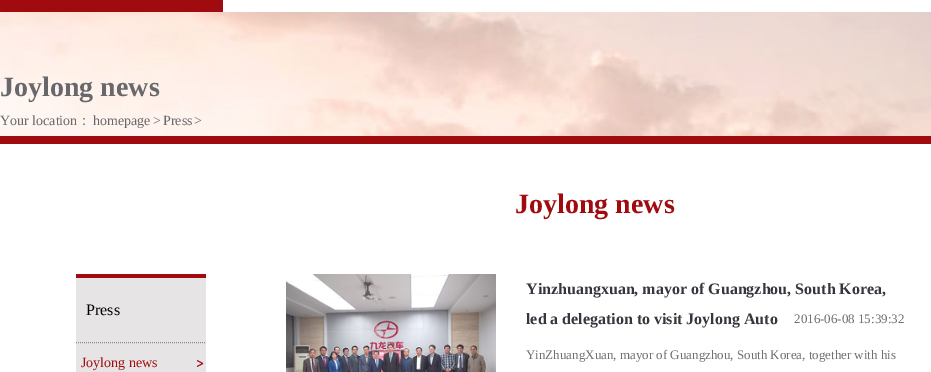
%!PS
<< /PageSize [931 372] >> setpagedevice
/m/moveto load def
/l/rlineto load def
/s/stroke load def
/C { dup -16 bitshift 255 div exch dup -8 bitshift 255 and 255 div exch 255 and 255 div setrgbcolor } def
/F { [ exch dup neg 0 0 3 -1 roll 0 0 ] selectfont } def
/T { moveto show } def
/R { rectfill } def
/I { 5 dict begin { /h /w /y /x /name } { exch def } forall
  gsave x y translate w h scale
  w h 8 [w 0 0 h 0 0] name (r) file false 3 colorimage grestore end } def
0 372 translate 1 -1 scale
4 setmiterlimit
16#FFFFFF C
0 0 931 372 R
16#A00B0F C
0 0 223 12 R
(1.rgb) 0 12 931 124 I
/LiberationSerif-Bold 28 F
16#68676B C
(Joylong news) 0 96 T
/LiberationSerif-Regular 14 F
(Your location) 0 125 T
/WenQuanYiZenHei-Medium 14 F
(：) 77 125 T
/LiberationSerif-Regular 14 F
(homepage) 93 125 T
(>) 153 125 T
(Press) 163 125 T
(>) 194 125 T
16#A00B0F C
0 136 931 8 R
16#E6E4E4 C
76 278 130 94 R
16#A00B0F C
76 274 130 4 R
16#8C8B8B C
[1 1] 0 setdash
76 342.5 m 130 0 l s
/LiberationSerif-Regular 16 F
16#000000 C
(Press) 86 315 T
(2.rgb) 197 360 7 7 I
/LiberationSerif-Regular 14 F
16#A00B0F C
(Joylong news) 81 367 T
/LiberationSerif-Bold 28 F
(Joylong news) 515 213 T
(3.rgb) 286 274 210 98 I
/LiberationSerif-Bold 16 F
16#37353D C
(Yinzhuangxuan, mayor of Guangzhou, South Korea,) 526 294 T
(led a delegation to visit Joylong Auto) 526 324 T
/LiberationSerif-Regular 13 F
16#6F6F6F C
(2016-06-08 15:39:32) 794 323 T
(YinZhuangXuan, mayor of Guangzhou, South Korea, together with his) 526 359 T
showpage
